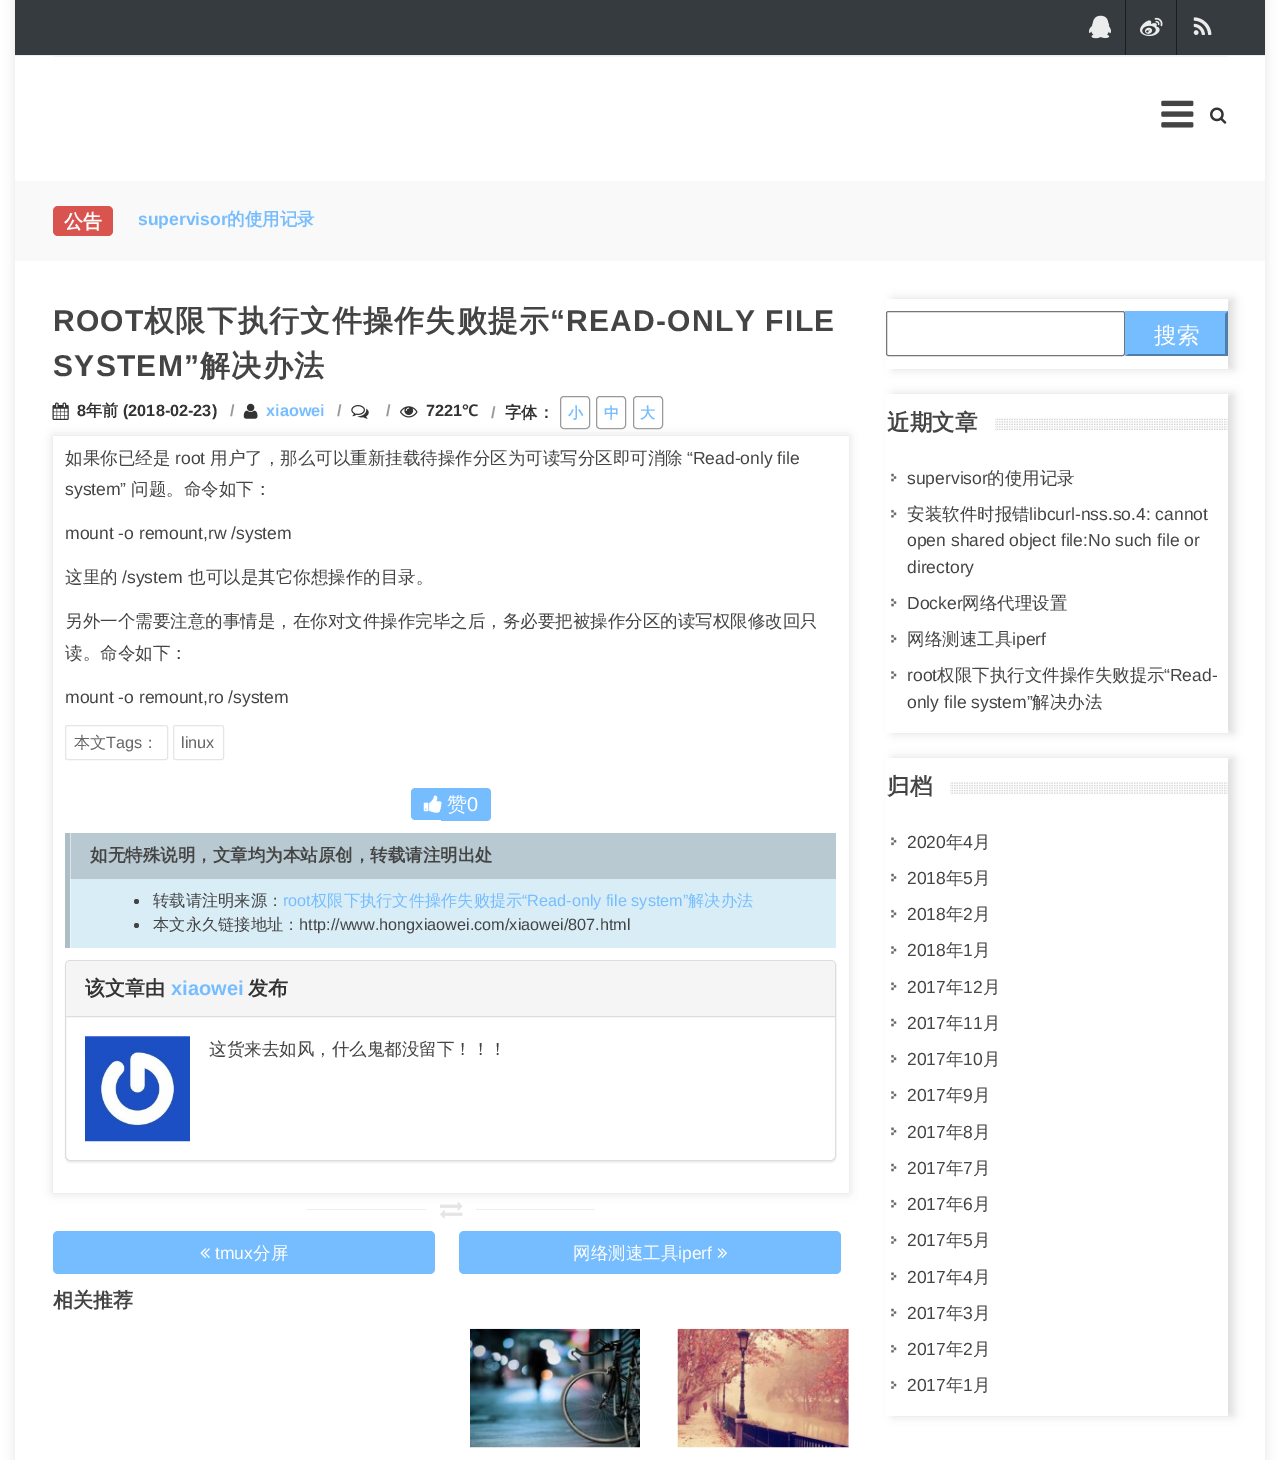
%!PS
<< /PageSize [1280 1460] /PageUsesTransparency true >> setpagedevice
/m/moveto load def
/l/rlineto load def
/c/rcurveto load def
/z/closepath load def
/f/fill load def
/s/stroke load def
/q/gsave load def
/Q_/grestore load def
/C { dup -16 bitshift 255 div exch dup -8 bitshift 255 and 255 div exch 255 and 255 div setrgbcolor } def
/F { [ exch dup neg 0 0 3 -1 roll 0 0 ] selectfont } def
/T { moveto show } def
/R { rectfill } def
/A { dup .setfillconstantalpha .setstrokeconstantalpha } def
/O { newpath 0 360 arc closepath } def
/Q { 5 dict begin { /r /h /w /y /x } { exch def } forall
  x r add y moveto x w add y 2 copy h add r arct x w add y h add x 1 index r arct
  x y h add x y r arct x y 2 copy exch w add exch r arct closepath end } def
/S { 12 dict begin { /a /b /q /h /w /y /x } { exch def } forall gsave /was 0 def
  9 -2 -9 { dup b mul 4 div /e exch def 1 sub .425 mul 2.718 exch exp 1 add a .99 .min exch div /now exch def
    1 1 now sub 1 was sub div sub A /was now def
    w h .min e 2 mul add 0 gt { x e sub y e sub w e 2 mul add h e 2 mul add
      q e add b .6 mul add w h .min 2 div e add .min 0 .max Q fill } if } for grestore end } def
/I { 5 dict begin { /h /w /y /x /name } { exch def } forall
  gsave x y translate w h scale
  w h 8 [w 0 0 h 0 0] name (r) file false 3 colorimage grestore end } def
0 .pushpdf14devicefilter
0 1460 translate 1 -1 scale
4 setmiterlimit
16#FFFFFF C
0 0 1280 1460 R
q
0 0 m 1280 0 l 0 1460 l -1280 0 l z 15 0 m 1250 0 l 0 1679 l -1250 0 l z eoclip newpath
16#000000 C
15 0 1250 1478 0 6 .1 S
Q_
16#363B3F C
15 0 1250 55 R
16#EEEEEE C
15 55 1250 1 R
(1.rgb) 1089 15 22 24 I
16#1B1E20 C
1125 0 1 55 R
(2.rgb) 1140 17 23 20 I
1176 0 1 55 R
(3.rgb) 1193 17 19 18 I
16#F5F5F5 C
53 56 1175 1 R
(4.rgb) 1210 107 17 17 I
(5.rgb) 1161 100 33 28 I
16#F9F9F9 C
15 181 1250 80 R
16#D9534F C
53 206 60 30 5 Q f
/WenQuanYiZenHei-Bold 19 F
16#FFFFFF C
(公告) 64 228 T
/LiberationSans-Bold 17.5 F
16#76BDFF C
(supervisor) 138 225 T
/WenQuanYiZenHei-Bold 17.5 F
(的使用记录) 227 225 T
/LiberationSans-Bold 30 F
16#444444 C
53 331 m 1.25 0 (ROOT) ashow
/WenQuanYiZenHei-Bold 30 F
144 331 m 1.25 0 (权限下执行文件操作失败提示) ashow
/LiberationSans-Bold 30 F
550 331 m 1.25 0 (“READ-ONLY FILE) ashow
53 376 m 1.25 0 (SYSTEM”) ashow
/WenQuanYiZenHei-Bold 30 F
200 376 m 1.25 0 (解决办法) ashow
(6.rgb) 52 402 17 18 I
/LiberationSans-Bold 16.25 F
16#333333 C
(8) 77 416 T
/WenQuanYiZenHei-Bold 16.25 F
(年前) 86 416 T
/LiberationSans-Bold 16.25 F
(\(2018-02-23\)) 123 416 T
16#999999 C
(/) 230 416 T
(7.rgb) 243 403 15 16 I
16#76BDFF C
(xiaowei) 266 416 T
16#999999 C
(/) 337 416 T
(8.rgb) 351 405 18 14 I
(/) 386 416 T
(9.rgb) 400 406 18 12 I
16#333333 C
(7221) 426 416 T
/NotoSans-SemiBold 16.25 F
(℃) 462 416 T
/LiberationSans-Bold 16.25 F
16#999999 C
(/) 491 418 T
/WenQuanYiZenHei-Bold 16.25 F
16#333333 C
(字体：) 505 418 T
16#999999 C
560.5 396.5 29 32 3.5 Q s
/WenQuanYiZenHei-Bold 15 F
16#76BDFF C
(小) 568 418 T
16#999999 C
596.5 396.5 29 32 3.5 Q s
16#76BDFF C
(中) 604 418 T
16#999999 C
633.5 396.5 29 32 3.5 Q s
16#76BDFF C
(大) 640 418 T
q
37 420 m 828 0 l 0 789 l -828 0 l z 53 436 m 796 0 l 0 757 l -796 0 l z eoclip newpath
16#DCDCDC C
53 436 796 757 0 5 1 S
Q_
/WenQuanYiZenHei-Medium 17.5 F
16#444444 C
(如果你已经是) 65 464 T
/LiberationSans-Regular 17.5 F
(root) 175 464 T
/WenQuanYiZenHei-Medium 17.5 F
(用户了，那么可以重新挂载待操作分区为可读写分区即可消除) 210 464 T
/LiberationSans-Regular 17.5 F
(“Read-only file) 687 464 T
(system”) 65 495 T
/WenQuanYiZenHei-Medium 17.5 F
(问题。命令如下：) 131 495 T
/LiberationSans-Regular 17.5 F
(mount -o remount,rw /system) 65 539 T
/WenQuanYiZenHei-Medium 17.5 F
(这里的) 65 583 T
/LiberationSans-Regular 17.5 F
(/system) 122 583 T
/WenQuanYiZenHei-Medium 17.5 F
(也可以是其它你想操作的目录。) 188 583 T
(另外一个需要注意的事情是，在你对文件操作完毕之后，务必要把被操作分区的读写权限修改回只) 65 627 T
(读。命令如下：) 65 659 T
/LiberationSans-Regular 17.5 F
(mount -o remount,ro /system) 65 703 T
16#E5E5E5 C
65.5 725.5 102 34 2 Q s
/WenQuanYiZenHei-Medium 16.25 F
16#666666 C
(本文) 74 748 T
/LiberationSans-Regular 16.25 F
(Tags) 106 748 T
/WenQuanYiZenHei-Medium 16.25 F
(：) 142 748 T
16#E5E5E5 C
173.5 725.5 50 34 2 Q s
/LiberationSans-Regular 16.25 F
16#666666 C
(linux) 181 748 T
16#76BDFF C
415 788 m 26 0 l 0 32 l -26 0 l -2 0 -4 -2 -4 -4 c 0 -24 l 0 -2 2 -4 4 -4 c z f
441 788 27 33 R
468 788 m 19 0 l 2 0 4 2 4 4 c 0 25 l 0 2 -2 4 -4 4 c -19 0 l z f
(10.rgb) 423 795 19 18 I
/WenQuanYiZenHei-Medium 20 F
16#FFFFFF C
(赞) 447 811 T
/LiberationSans-Regular 20 F
(0) 467 811 T
16#D9EDF7 C
71 879 765 69 R
16#AEBEC6 C
65 833 5 115 R
16#B8C9D2 C
71 833 765 46 R
16#DCE4E9 C
70 833 1 46 R
/WenQuanYiZenHei-Bold 17.5 F
16#444444 C
(如无特殊说明，文章均为本站原创，转载请注明出处) 90 861 T
16#ECF6FB C
70 879 1 69 R
16#444444 C
136.5 901.5 2.5 O f
/WenQuanYiZenHei-Medium 16.25 F
(转载请注明来源：) 153 906 T
/LiberationSans-Regular 16.25 F
16#76BDFF C
(root) 283 906 T
/WenQuanYiZenHei-Medium 16.25 F
(权限下执行文件操作失败提示) 311 906 T
/LiberationSans-Regular 16.25 F
(“Read-only file system”) 522 906 T
/WenQuanYiZenHei-Medium 16.25 F
(解决办法) 688 906 T
16#444444 C
136.5 925.5 2.5 O f
(本文永久链接地址：) 153 930 T
/LiberationSans-Regular 16.25 F
(http://www.hongxiaowei.com/xiaowei/807.html) 299 930 T
16#000000 C
65 961 771 202 5 .5 .05 S
16#FFFFFF C
65.5 960.5 770 200 4.5 Q q f Q_
16#DDDDDD C
s
16#F5F5F5 C
70 961 m 761 0 l 2 0 4 2 4 4 c 0 53 l -769 0 l 0 -53 l 0 -2 2 -4 4 -4 c z f
16#DDDDDD C
66 1016 769 1 R
/WenQuanYiZenHei-Bold 20 F
16#333333 C
(该文章由) 85 995 T
/LiberationSans-Bold 20 F
16#76BDFF C
(xiaowei) 171 995 T
/WenQuanYiZenHei-Bold 20 F
16#333333 C
(发布) 248 995 T
(11.rgb) 85 1036 105 106 I
/WenQuanYiZenHei-Medium 17.5 F
16#444444 C
(这货来去如风，什么鬼都没留下！！！) 209 1055 T
16#EEEEEE C
306 1209 120 1 R
(12.rgb) 440 1202 23 17 I
476 1209 119 1 R
16#76BDFF C
53 1231 382 43 5 Q f
(13.rgb) 200 1248 10 10 I
/LiberationSans-Regular 17.5 F
16#FFFFFF C
(tmux) 215 1259 T
/WenQuanYiZenHei-Medium 17.5 F
(分屏) 253 1259 T
16#76BDFF C
459 1231 382 43 5 Q f
16#FFFFFF C
(网络测速工具) 573 1259 T
/LiberationSans-Regular 17.5 F
(iperf) 678 1259 T
(14.rgb) 717 1248 10 10 I
/WenQuanYiZenHei-Bold 20 F
16#444444 C
(相关推荐) 53 1307 T
(15.rgb) 470 1328 170 120 I
(16.rgb) 677 1328 172 120 I
q
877 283 m 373 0 l 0 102 l -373 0 l z 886 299 m 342 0 l 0 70 l -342 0 l z eoclip newpath
16#DCDCDC C
893 299 341 70 0 5 1 S
Q_
16#767676 C
886.5 311.5 238 44 2 Q s
16#76BDFF C
1125 311 103 45 R
16#4F7EAA C
1228 311 m 0 45 l -3 -2 l 0 -40 l z f
1228 356 m -103 0 l 3 -2 l 97 0 l z f
16#76BDFF C
1125 356 m 0 -45 l 3 3 l 0 40 l z f
/WenQuanYiZenHei-Medium 22.5 F
16#FFFFFF C
(搜索) 1154 343 T
q
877 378 m 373 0 l 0 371 l -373 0 l z 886 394 m 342 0 l 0 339 l -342 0 l z eoclip newpath
16#DCDCDC C
893 394 341 339 0 5 1 S
Q_
1227 394 1 59 R
(17.rgb) 995 418 233 12 I
/WenQuanYiZenHei-Bold 22.5 F
16#444444 C
(近期文章) 887 430 T
(18.rgb) 891 473 6 9 I
/LiberationSans-Regular 17.5 F
(supervisor) 907 484 T
/WenQuanYiZenHei-Medium 17.5 F
(的使用记录) 987 484 T
(19.rgb) 891 509 6 9 I
(安装软件时报错) 907 520 T
/LiberationSans-Regular 17.5 F
(libcurl-nss.so.4: cannot) 1029 520 T
(open shared object file:No such file or) 907 546 T
(directory) 907 573 T
(18.rgb) 891 598 6 9 I
(Docker) 907 609 T
/WenQuanYiZenHei-Medium 17.5 F
(网络代理设置) 962 609 T
(19.rgb) 891 634 6 9 I
(网络测速工具) 907 645 T
/LiberationSans-Regular 17.5 F
(iperf) 1012 645 T
(20.rgb) 891 671 6 8 I
(root) 907 681 T
/WenQuanYiZenHei-Medium 17.5 F
(权限下执行文件操作失败提示) 937 681 T
/LiberationSans-Regular 17.5 F
(“Read-) 1164 681 T
(only file system”) 907 708 T
/WenQuanYiZenHei-Medium 17.5 F
(解决办法) 1032 708 T
q
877 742 m 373 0 l 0 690 l -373 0 l z 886 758 m 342 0 l 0 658 l -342 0 l z eoclip newpath
16#DCDCDC C
893 758 341 658 0 5 1 S
Q_
16#FFFFFF C
1227 758 1 58 R
(21.rgb) 950 782 278 12 I
/WenQuanYiZenHei-Bold 22.5 F
16#444444 C
(归档) 887 794 T
(22.rgb) 891 837 6 9 I
/LiberationSans-Regular 17.5 F
(2020) 907 848 T
/WenQuanYiZenHei-Medium 17.5 F
(年) 946 848 T
/LiberationSans-Regular 17.5 F
(4) 963 848 T
/WenQuanYiZenHei-Medium 17.5 F
(月) 973 848 T
(18.rgb) 891 873 6 9 I
/LiberationSans-Regular 17.5 F
(2018) 907 884 T
/WenQuanYiZenHei-Medium 17.5 F
(年) 946 884 T
/LiberationSans-Regular 17.5 F
(5) 963 884 T
/WenQuanYiZenHei-Medium 17.5 F
(月) 973 884 T
(19.rgb) 891 909 6 9 I
/LiberationSans-Regular 17.5 F
(2018) 907 920 T
/WenQuanYiZenHei-Medium 17.5 F
(年) 946 920 T
/LiberationSans-Regular 17.5 F
(2) 963 920 T
/WenQuanYiZenHei-Medium 17.5 F
(月) 973 920 T
(20.rgb) 891 946 6 8 I
/LiberationSans-Regular 17.5 F
(2018) 907 956 T
/WenQuanYiZenHei-Medium 17.5 F
(年) 946 956 T
/LiberationSans-Regular 17.5 F
(1) 963 956 T
/WenQuanYiZenHei-Medium 17.5 F
(月) 973 956 T
(22.rgb) 891 982 6 9 I
/LiberationSans-Regular 17.5 F
(2017) 907 993 T
/WenQuanYiZenHei-Medium 17.5 F
(年) 946 993 T
/LiberationSans-Regular 17.5 F
(12) 963 993 T
/WenQuanYiZenHei-Medium 17.5 F
(月) 983 993 T
(18.rgb) 891 1018 6 9 I
/LiberationSans-Regular 17.5 F
(2017) 907 1029 T
/WenQuanYiZenHei-Medium 17.5 F
(年) 946 1029 T
/LiberationSans-Regular 17.5 F
(11) 963 1029 T
/WenQuanYiZenHei-Medium 17.5 F
(月) 983 1029 T
(19.rgb) 891 1054 6 9 I
/LiberationSans-Regular 17.5 F
(2017) 907 1065 T
/WenQuanYiZenHei-Medium 17.5 F
(年) 946 1065 T
/LiberationSans-Regular 17.5 F
(10) 963 1065 T
/WenQuanYiZenHei-Medium 17.5 F
(月) 983 1065 T
(20.rgb) 891 1091 6 8 I
/LiberationSans-Regular 17.5 F
(2017) 907 1101 T
/WenQuanYiZenHei-Medium 17.5 F
(年) 946 1101 T
/LiberationSans-Regular 17.5 F
(9) 963 1101 T
/WenQuanYiZenHei-Medium 17.5 F
(月) 973 1101 T
(22.rgb) 891 1127 6 9 I
/LiberationSans-Regular 17.5 F
(2017) 907 1138 T
/WenQuanYiZenHei-Medium 17.5 F
(年) 946 1138 T
/LiberationSans-Regular 17.5 F
(8) 963 1138 T
/WenQuanYiZenHei-Medium 17.5 F
(月) 973 1138 T
(18.rgb) 891 1163 6 9 I
/LiberationSans-Regular 17.5 F
(2017) 907 1174 T
/WenQuanYiZenHei-Medium 17.5 F
(年) 946 1174 T
/LiberationSans-Regular 17.5 F
(7) 963 1174 T
/WenQuanYiZenHei-Medium 17.5 F
(月) 973 1174 T
(19.rgb) 891 1199 6 9 I
/LiberationSans-Regular 17.5 F
(2017) 907 1210 T
/WenQuanYiZenHei-Medium 17.5 F
(年) 946 1210 T
/LiberationSans-Regular 17.5 F
(6) 963 1210 T
/WenQuanYiZenHei-Medium 17.5 F
(月) 973 1210 T
(20.rgb) 891 1236 6 8 I
/LiberationSans-Regular 17.5 F
(2017) 907 1246 T
/WenQuanYiZenHei-Medium 17.5 F
(年) 946 1246 T
/LiberationSans-Regular 17.5 F
(5) 963 1246 T
/WenQuanYiZenHei-Medium 17.5 F
(月) 973 1246 T
(22.rgb) 891 1272 6 9 I
/LiberationSans-Regular 17.5 F
(2017) 907 1283 T
/WenQuanYiZenHei-Medium 17.5 F
(年) 946 1283 T
/LiberationSans-Regular 17.5 F
(4) 963 1283 T
/WenQuanYiZenHei-Medium 17.5 F
(月) 973 1283 T
(18.rgb) 891 1308 6 9 I
/LiberationSans-Regular 17.5 F
(2017) 907 1319 T
/WenQuanYiZenHei-Medium 17.5 F
(年) 946 1319 T
/LiberationSans-Regular 17.5 F
(3) 963 1319 T
/WenQuanYiZenHei-Medium 17.5 F
(月) 973 1319 T
(19.rgb) 891 1344 6 9 I
/LiberationSans-Regular 17.5 F
(2017) 907 1355 T
/WenQuanYiZenHei-Medium 17.5 F
(年) 946 1355 T
/LiberationSans-Regular 17.5 F
(2) 963 1355 T
/WenQuanYiZenHei-Medium 17.5 F
(月) 973 1355 T
(20.rgb) 891 1381 6 8 I
/LiberationSans-Regular 17.5 F
(2017) 907 1391 T
/WenQuanYiZenHei-Medium 17.5 F
(年) 946 1391 T
/LiberationSans-Regular 17.5 F
(1) 963 1391 T
/WenQuanYiZenHei-Medium 17.5 F
(月) 973 1391 T
.poppdf14devicefilter showpage
